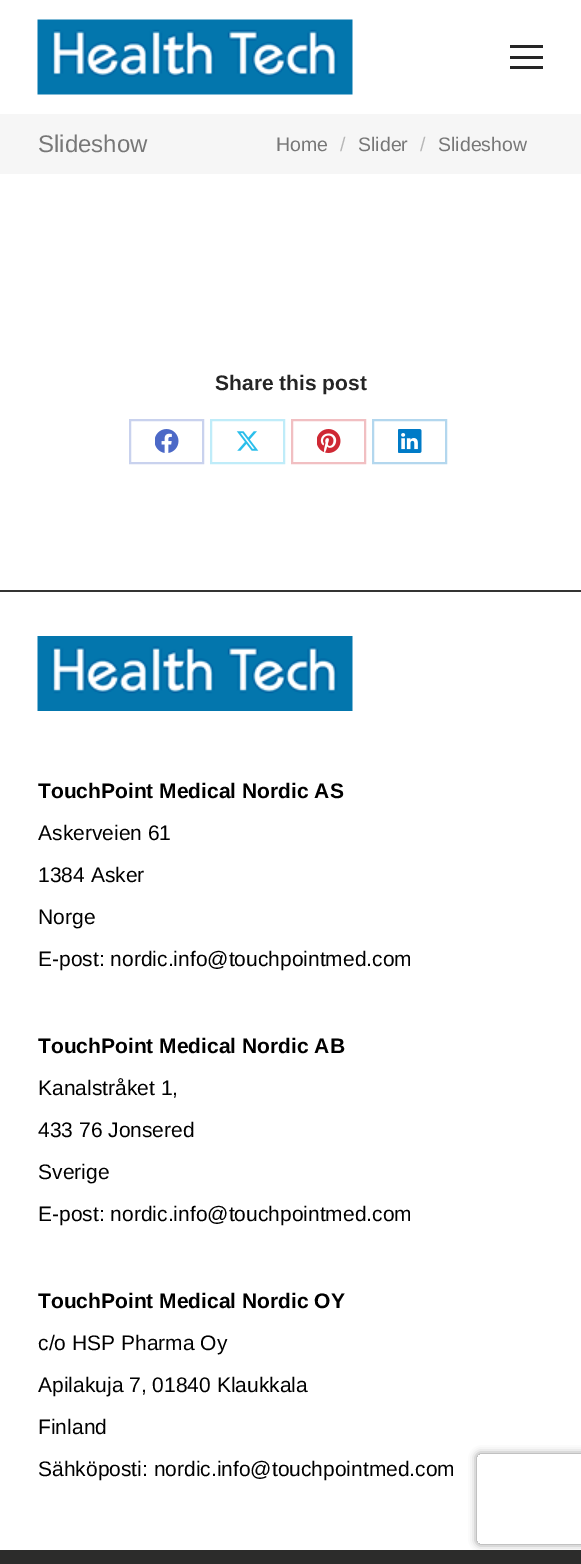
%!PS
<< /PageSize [581 1564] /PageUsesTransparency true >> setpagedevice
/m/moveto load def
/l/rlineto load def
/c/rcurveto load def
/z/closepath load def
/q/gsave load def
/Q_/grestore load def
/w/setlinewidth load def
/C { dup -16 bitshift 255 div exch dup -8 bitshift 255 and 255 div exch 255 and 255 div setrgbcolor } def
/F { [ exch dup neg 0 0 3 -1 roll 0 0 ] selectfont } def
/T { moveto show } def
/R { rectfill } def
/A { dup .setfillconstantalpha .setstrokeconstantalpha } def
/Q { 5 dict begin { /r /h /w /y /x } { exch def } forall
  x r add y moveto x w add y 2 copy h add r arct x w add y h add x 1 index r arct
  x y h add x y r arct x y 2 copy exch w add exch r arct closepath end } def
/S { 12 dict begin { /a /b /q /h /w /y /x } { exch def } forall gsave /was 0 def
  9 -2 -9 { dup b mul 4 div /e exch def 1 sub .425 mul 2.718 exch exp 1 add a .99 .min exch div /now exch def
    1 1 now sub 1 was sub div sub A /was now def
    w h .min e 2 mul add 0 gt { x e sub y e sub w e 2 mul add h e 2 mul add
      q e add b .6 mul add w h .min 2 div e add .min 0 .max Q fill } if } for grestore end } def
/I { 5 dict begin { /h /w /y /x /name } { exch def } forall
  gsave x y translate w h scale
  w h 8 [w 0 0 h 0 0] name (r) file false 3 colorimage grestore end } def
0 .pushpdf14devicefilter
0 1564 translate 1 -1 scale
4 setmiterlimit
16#FFFFFF C
0 0 581 1564 R
(1.rgb) 37 19 316 76 I
16#252525 C
510 45 33 3 R
510 56 33 3 R
510 66 33 3 R
16#F6F6F6 C
0 114 581 60 R
/LiberationSans-Regular 24 F
16#777777 C
(Slideshow) 38 152 T
/LiberationSans-Regular 19.5 F
(Home) 276 151 T
16#B7B7B7 C
(/) 340 151 T
16#777777 C
(Slider) 358 151 T
16#B7B7B7 C
(/) 420 151 T
16#777777 C
(Slideshow) 438 151 T
/LiberationSans-Bold 21 F
16#252525 C
(Share this post) 215 390 T
16#C9D2EE C
2 w
130 420 73 43 rectstroke
(2.rgb) 155 429 24 24 I
16#BFECF9 C
211 420 73 43 rectstroke
(3.rgb) 236 431 23 20 I
16#F1BFC2 C
292 420 73 43 rectstroke
(4.rgb) 317 429 24 24 I
16#B3D7EE C
373 420 73 43 rectstroke
(5.rgb) 398 429 24 24 I
16#343433 C
0 590 581 2 R
(6.rgb) 37 636 316 75 I
16#000000 C
(TouchPoint Medical Nordic AS) 38 798 T
/LiberationSans-Regular 21 F
(Askerveien 61) 38 840 T
(1384 Asker) 38 882 T
(Norge) 38 924 T
(E-post: nordic.info@touchpointmed.com) 38 966 T
/LiberationSans-Bold 21 F
(TouchPoint Medical Nordic AB) 38 1053 T
/LiberationSans-Regular 21 F
(Kanalstråket 1,) 38 1095 T
(433 76 Jonsered) 38 1137 T
(Sverige) 38 1179 T
(E-post: nordic.info@touchpointmed.com) 38 1221 T
/LiberationSans-Bold 21 F
(TouchPoint Medical Nordic OY) 38 1308 T
/LiberationSans-Regular 21 F
(c/o HSP Pharma Oy) 38 1350 T
(Apilakuja 7, 01840 Klaukkala) 38 1392 T
(Finland) 38 1434 T
(Sähköposti: nordic.info@touchpointmed.com) 38 1476 T
q
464 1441 m 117 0 l 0 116 l -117 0 l z 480 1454 m 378 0 l 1.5 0 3 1.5 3 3 c 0 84 l 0 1.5 -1.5 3 -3 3 c -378 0 l -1.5 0 -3 -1.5 -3 -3 c 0 -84 l 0 -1.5 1.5 -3 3 -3 c z eoclip newpath
16#808080 C
477 1454 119 90 3 4 1 S
Q_
16#2C2C2B C
0 1550 581 14 R
.poppdf14devicefilter showpage
